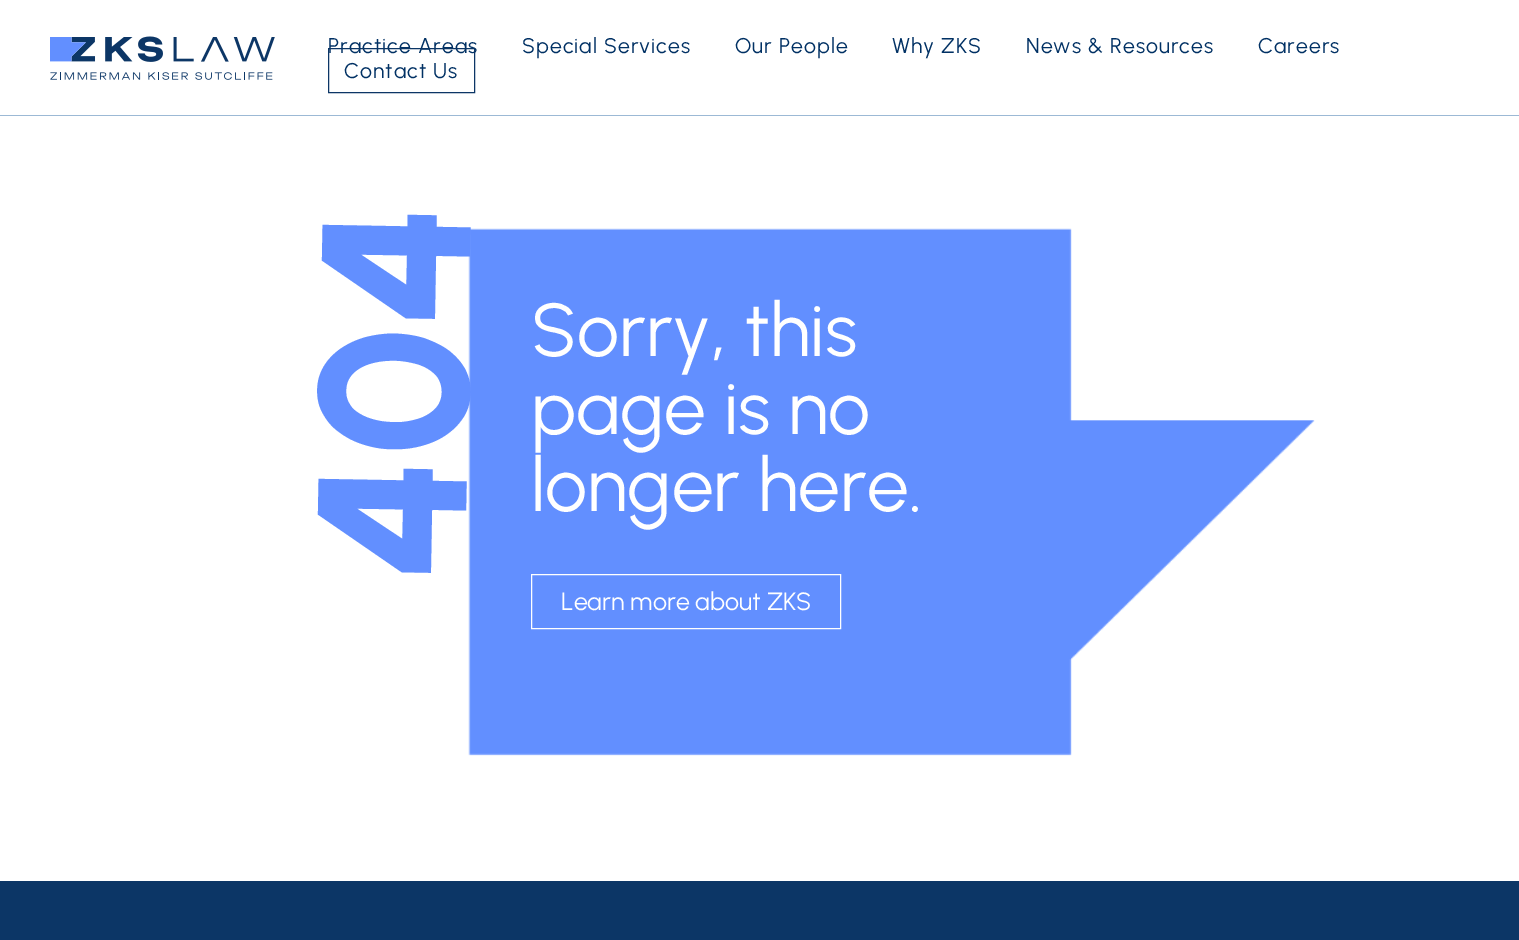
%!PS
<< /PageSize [1519 940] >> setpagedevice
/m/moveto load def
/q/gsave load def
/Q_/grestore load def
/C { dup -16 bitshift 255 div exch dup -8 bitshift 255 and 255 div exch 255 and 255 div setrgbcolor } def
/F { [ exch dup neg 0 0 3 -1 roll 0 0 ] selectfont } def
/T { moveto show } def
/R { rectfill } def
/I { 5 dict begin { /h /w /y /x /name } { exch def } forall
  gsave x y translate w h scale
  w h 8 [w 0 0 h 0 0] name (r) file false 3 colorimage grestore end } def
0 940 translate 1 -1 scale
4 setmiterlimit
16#FFFFFF C
0 0 1519 940 R
16#9CB9D5 C
0 115 1519 1 R
(1.rgb) 50 36 225 44 I
/Urbanist-Regular 21.25 F
16#013164 C
328 53 m 1 0 (Practice Areas) ashow
522 53 m 1 0 (Special Services) ashow
735 53 m 1 0 (Our People) ashow
892 53 m 1 0 (Why ZKS) ashow
1026 53 m 1 0 (News & Resources) ashow
1258 53 m 1 0 (Careers) ashow
16#0C3666 C
328.5 48.5 146 44 rectstroke
16#013164 C
344 78 m 1 0 (Contact Us) ashow
(2.rgb) 468 228 847 528 I
/Urbanist-ExtraBold 212 F
16#628FFF C
q 465 582 translate -89 rotate 0 0 m (404) show Q_
/Urbanist-Regular 75 F
16#FFFFFF C
(Sorry, this) 531 356 T
(page is no) 531 434 T
(longer here.) 531 511 T
531.5 574.5 309 54 rectstroke
/Urbanist-Regular 25 F
(Learn more about ZKS) 561 610 T
16#0C3666 C
0 881 1519 59 R
showpage
